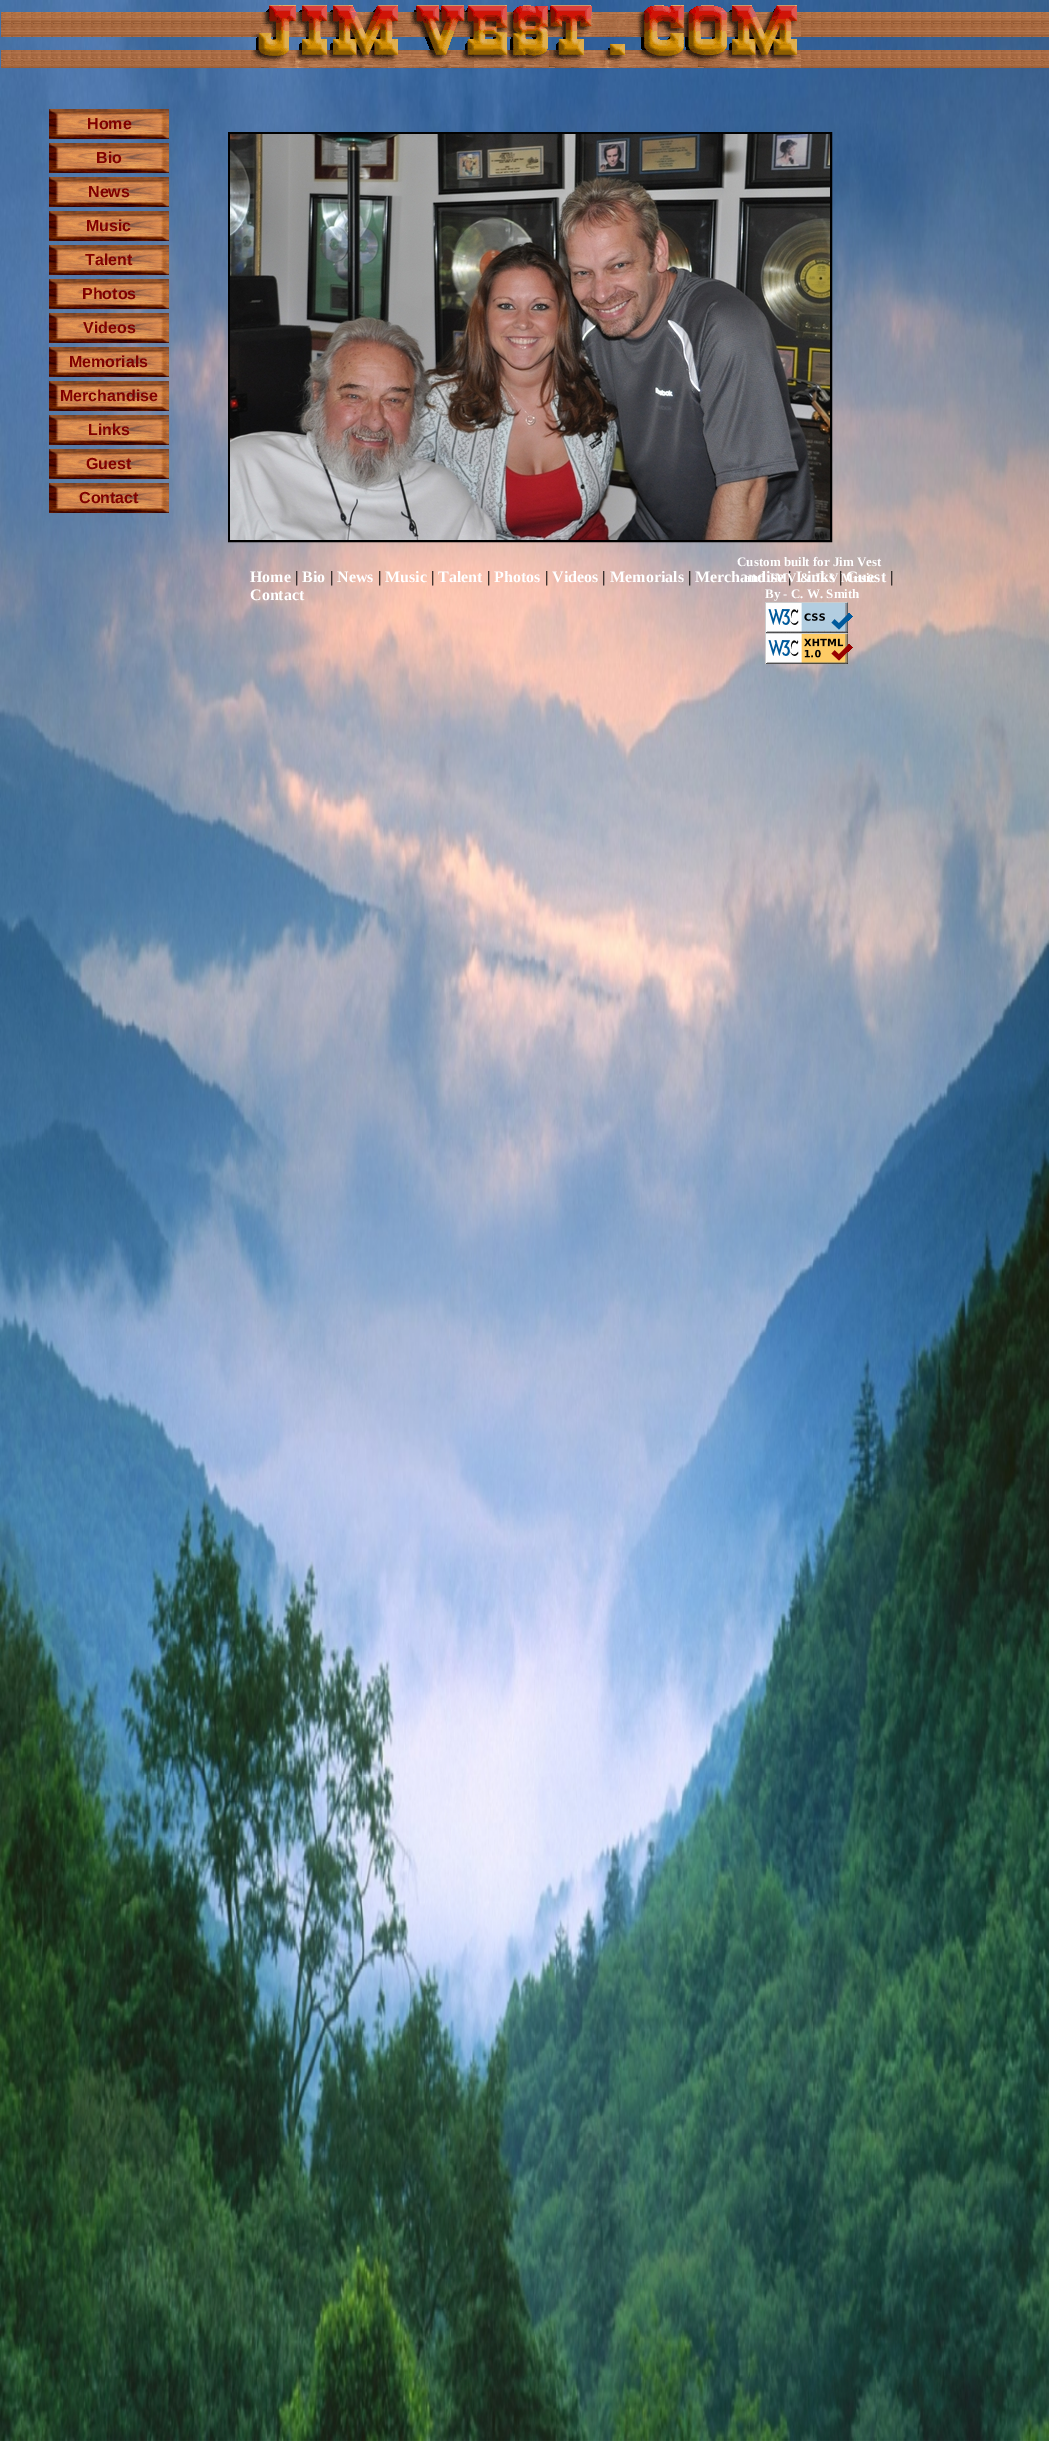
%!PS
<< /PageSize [1049 2441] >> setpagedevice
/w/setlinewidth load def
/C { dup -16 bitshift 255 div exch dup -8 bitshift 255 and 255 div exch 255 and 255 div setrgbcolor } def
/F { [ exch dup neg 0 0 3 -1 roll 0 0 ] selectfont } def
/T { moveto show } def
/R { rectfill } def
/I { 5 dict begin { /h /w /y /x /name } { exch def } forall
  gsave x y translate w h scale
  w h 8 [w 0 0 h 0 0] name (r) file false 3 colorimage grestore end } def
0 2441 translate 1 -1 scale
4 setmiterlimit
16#FFFFFF C
0 0 1049 2441 R
(3.rgb) 0 0 1049 2441 I
(1.rgb) 1 12 1048 56 I
(2.rgb) 251 5 550 63 I
(4.rgb) 49 109 120 30 I
/LiberationSans-Bold 16 F
16#800000 C
(Home) 87 129 T
(4.rgb) 49 143 120 30 I
(Bio) 96 163 T
(4.rgb) 49 177 120 30 I
(News) 88 197 T
(4.rgb) 49 211 120 30 I
(Music) 86 231 T
(4.rgb) 49 245 120 30 I
(Talent) 85 265 T
(4.rgb) 49 279 120 30 I
(Photos) 82 299 T
(4.rgb) 49 313 120 30 I
(Videos) 83 333 T
(4.rgb) 49 347 120 30 I
(Memorials) 69 367 T
(4.rgb) 49 381 120 30 I
(Merchandise) 60 401 T
(4.rgb) 49 415 120 30 I
(Links) 88 435 T
(4.rgb) 49 449 120 30 I
(Guest) 86 469 T
(4.rgb) 49 483 120 30 I
(Contact) 79 503 T
16#000000 C
2 w
229 133 602 408 rectstroke
(5.rgb) 230 134 600 406 I
/LiberationSerif-Bold 13 F
16#FFFFFF C
(Custom built for Jim Vest) 737 566 T
/LiberationSerif-Bold 16 F
(Merchandise) 695 582 T
16#000000 C
(|) 788 582 T
16#FFFFFF C
(Links) 796 582 T
16#000000 C
(|) 839 582 T
16#FFFFFF C
(Guest) 846 582 T
/LiberationSerif-Bold 13 F
(and JMV & JLV Music) 744 582 T
(By - C. W. Smith) 765 598 T
(6.rgb) 765 602 88 31 I
(7.rgb) 765 633 88 31 I
/LiberationSerif-Bold 16 F
(Home) 250 582 T
16#000000 C
(|) 295 582 T
16#FFFFFF C
(Bio) 302 582 T
16#000000 C
(|) 330 582 T
16#FFFFFF C
(News) 337 582 T
16#000000 C
(|) 378 582 T
16#FFFFFF C
(Music) 385 582 T
16#000000 C
(|) 431 582 T
16#FFFFFF C
(Talent) 438 582 T
16#000000 C
(|) 487 582 T
16#FFFFFF C
(Photos) 494 582 T
16#000000 C
(|) 545 582 T
16#FFFFFF C
(Videos) 552 582 T
16#000000 C
(|) 602 582 T
16#FFFFFF C
(Memorials) 610 582 T
16#000000 C
(|) 688 582 T
(|) 890 582 T
16#FFFFFF C
(Contact) 250 600 T
showpage
